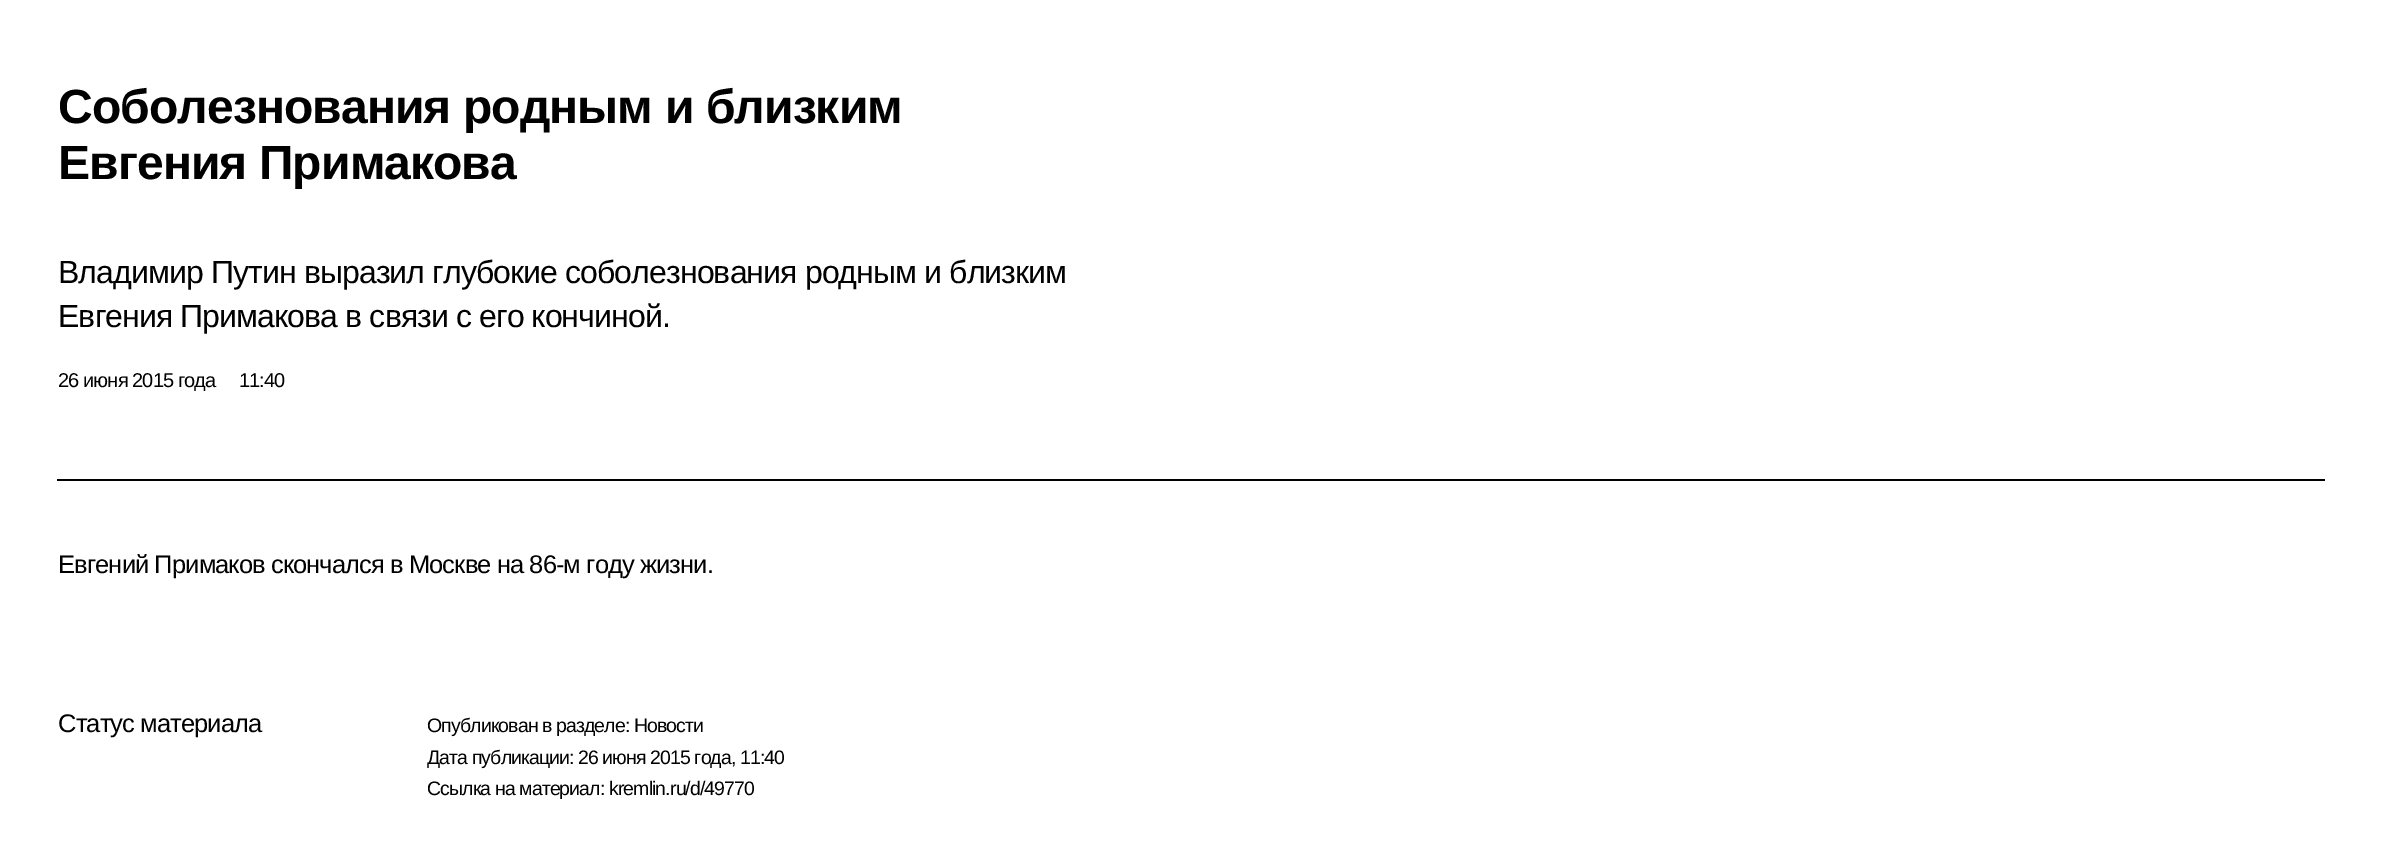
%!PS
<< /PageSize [2381 852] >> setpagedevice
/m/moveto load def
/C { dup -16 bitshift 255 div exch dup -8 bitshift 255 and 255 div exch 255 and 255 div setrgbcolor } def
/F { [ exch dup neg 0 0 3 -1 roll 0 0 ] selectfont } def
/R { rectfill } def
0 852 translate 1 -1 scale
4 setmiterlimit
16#FFFFFF C
0 0 2381 852 R
16#000000 C
57 479 2268 2 R
/LiberationSans-Bold 48 F
58 123 m -.9 0 (Соболезнования родным и близким) ashow
58 179 m -.9 0 (Евгения Примакова) ashow
/LiberationSans-Regular 32 F
58 283 m -.9 0 (Владимир Путин выразил глубокие соболезнования родным и близким) ashow
58 327 m -.9 0 (Евгения Примакова в связи с его кончиной.) ashow
/LiberationSans-Regular 20 F
58 387 m -.9 0 (26 июня 2015 года) ashow
239 387 m -.9 0 (11:40) ashow
/LiberationSans-Regular 25.5 F
58 573 m -.9 0 (Евгений Примаков скончался в Москве на 86-м году жизни.) ashow
58 732 m -.9 0 (Статус материала) ashow
/LiberationSans-Regular 19.5 F
427 732 m -.9 0 (Опубликован в разделе: Новости) ashow
427 764 m -.9 0 (Дата публикации: 26 июня 2015 года, 11:40) ashow
427 795 m -.9 0 (Ссылка на материал: kremlin.ru/d/49770) ashow
showpage
